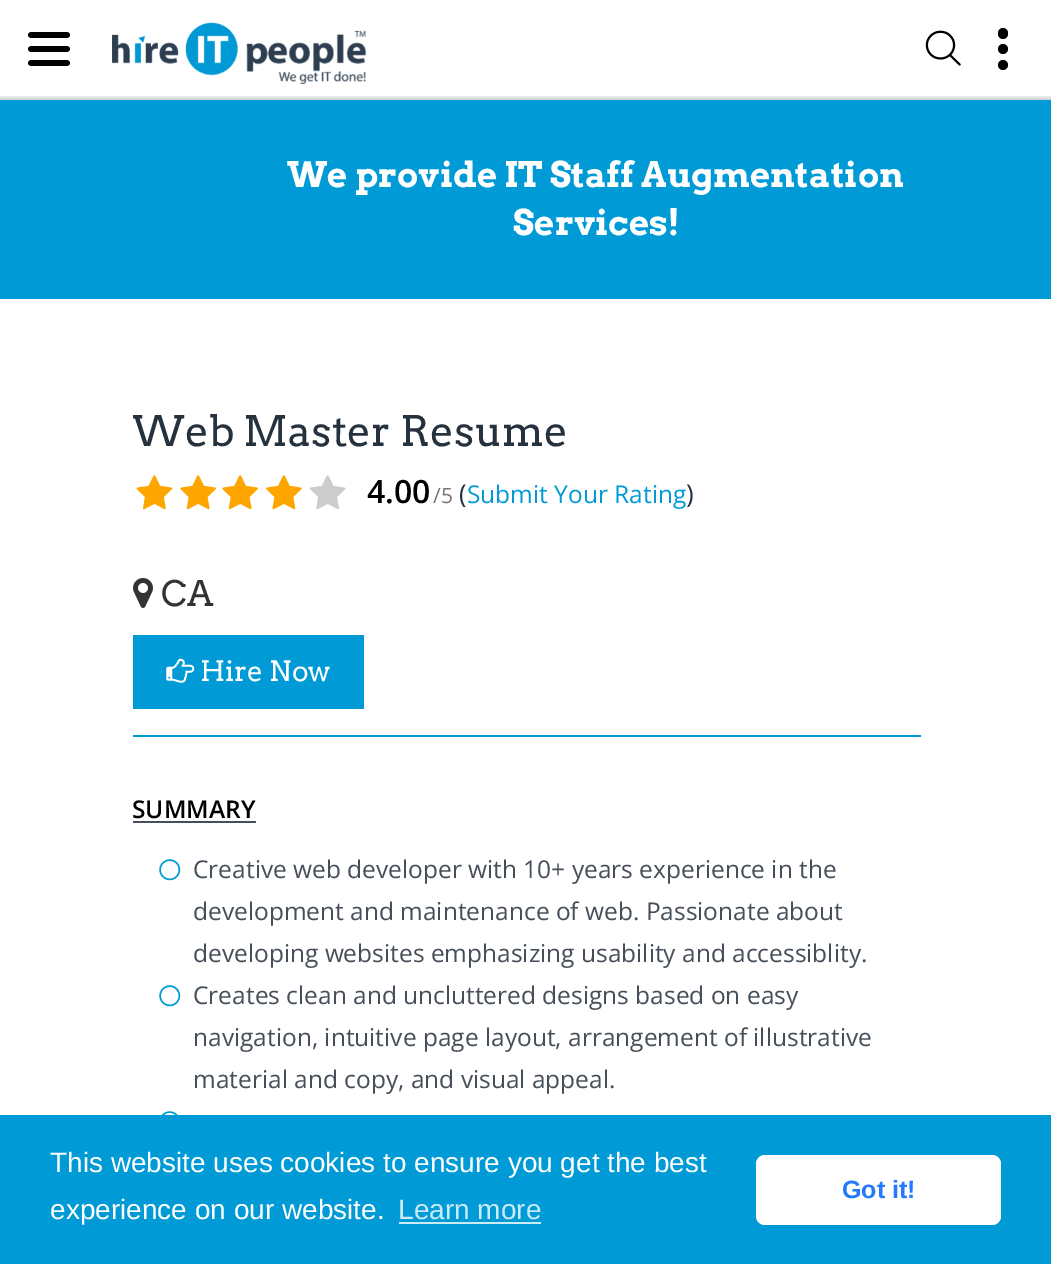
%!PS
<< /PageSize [1051 1264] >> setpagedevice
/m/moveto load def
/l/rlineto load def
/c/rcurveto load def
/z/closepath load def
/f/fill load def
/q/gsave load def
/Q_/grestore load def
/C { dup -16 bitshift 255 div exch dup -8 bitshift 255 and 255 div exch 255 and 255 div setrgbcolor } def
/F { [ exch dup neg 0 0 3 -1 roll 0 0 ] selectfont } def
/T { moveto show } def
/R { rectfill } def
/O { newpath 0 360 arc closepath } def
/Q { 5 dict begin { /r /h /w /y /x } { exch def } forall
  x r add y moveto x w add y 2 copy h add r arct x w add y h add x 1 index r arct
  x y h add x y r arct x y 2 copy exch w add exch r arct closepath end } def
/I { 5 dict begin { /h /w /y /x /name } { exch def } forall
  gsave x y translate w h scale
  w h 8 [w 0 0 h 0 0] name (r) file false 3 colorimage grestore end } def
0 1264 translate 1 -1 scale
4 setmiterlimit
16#FFFFFF C
0 0 1051 1264 R
16#D3D6D8 C
0 98 1051 2 R
16#000000 C
66 52 m -34 0 l -2 0 -4 -1 -4 -3 c 0 -2 2 -3 4 -3 c 34 0 l 2 0 4 1 4 3 c 0 2 -2 3 -4 3 c z 66 66 m -34 0 l -2 0 -4 -1 -4 -3 c 0 -2 2 -3 4 -3 c 34 0 l 2 0 4 1 4 3 c 0 2 -2 3 -4 3 c z 66 38 m -34 0 l -2 0 -4 -1 -4 -3 c 0 -2 2 -3 4 -3 c 34 0 l 2 0 4 1 4 3 c 0 2 -2 3 -4 3 c z f
(1.rgb) 112 22 254 62 I
16#E5E7E9 C
0 96 1051 2 R
(2.rgb) 925 30 36 36 I
16#000000 C
1003 49 5 O f
998 28 10 11 5 Q f
1003 65 5 O f
16#009BD6 C
0 100 1051 199 R
/Arvo-Bold 35 F
16#FFFFFF C
(We provide IT Staff Augmentation) 287 187 T
(Services!) 513 235 T
16#009BD6 C
133 735 788 2 R
q
133 404 788 214 rectclip
/Arvo-Regular 42 F
16#25313D C
(Web Master Resume) 132 446 T
Q_
(3.rgb) 136 475 37 35 I
(4.rgb) 180 475 36 35 I
(5.rgb) 222 475 36 35 I
(6.rgb) 266 475 36 35 I
(7.rgb) 309 475 37 35 I
/OpenSans-SemiBold 32 F
16#000000 C
(4.00) 367 503 T
/OpenSans-Regular 21 F
16#777777 C
(/5) 433 503 T
/OpenSans-Regular 26 F
16#25313D C
(\() 459 503 T
/OpenSans-Regular 24.5 F
16#009BD6 C
(Submit Your Rating) 467 503 T
/OpenSans-Regular 26 F
16#25313D C
(\)) 686 503 T
(8.rgb) 133 578 20 30 I
/Arvo-Regular 35 F
16#333333 C
(CA) 161 606 T
16#009BD6 C
133 635 231 74 R
(9.rgb) 166 658 29 25 I
/Arvo-Regular 28 F
16#FFFFFF C
(Hire Now) 200 681 T
/OpenSans-SemiBold 24.5 F
16#000000 C
(SUMMARY) 132 818 T
16#464F59 C
133 821 123 2 R
(10.rgb) 159 859 22 22 I
/OpenSans-Regular 24.5 F
(Creative web developer with 10+ years experience in the) 193 878 T
(development and maintenance of web. Passionate about) 193 920 T
(developing websites emphasizing usability and accessiblity.) 193 962 T
(10.rgb) 159 985 22 22 I
(Creates clean and uncluttered designs based on easy) 193 1004 T
(navigation, intuitive page layout, arrangement of illustrative) 193 1046 T
(material and copy, and visual appeal.) 193 1088 T
(11.rgb) 161 1111 17 4 I
16#009BD6 C
0 1115 1051 149 R
/LiberationSans-Regular 28 F
16#FFFFFF C
(This website uses cookies to ensure you get the best) 50 1172 T
(experience on our website.) 50 1219 T
16#CCEBF7 C
(Learn more) 398 1219 T
399 1222 142 2 R
16#FFFFFF C
756 1155 245 70 9 Q f
/LiberationSans-Bold 25 F
16#237AFC C
(Got it!) 842 1198 T
showpage
